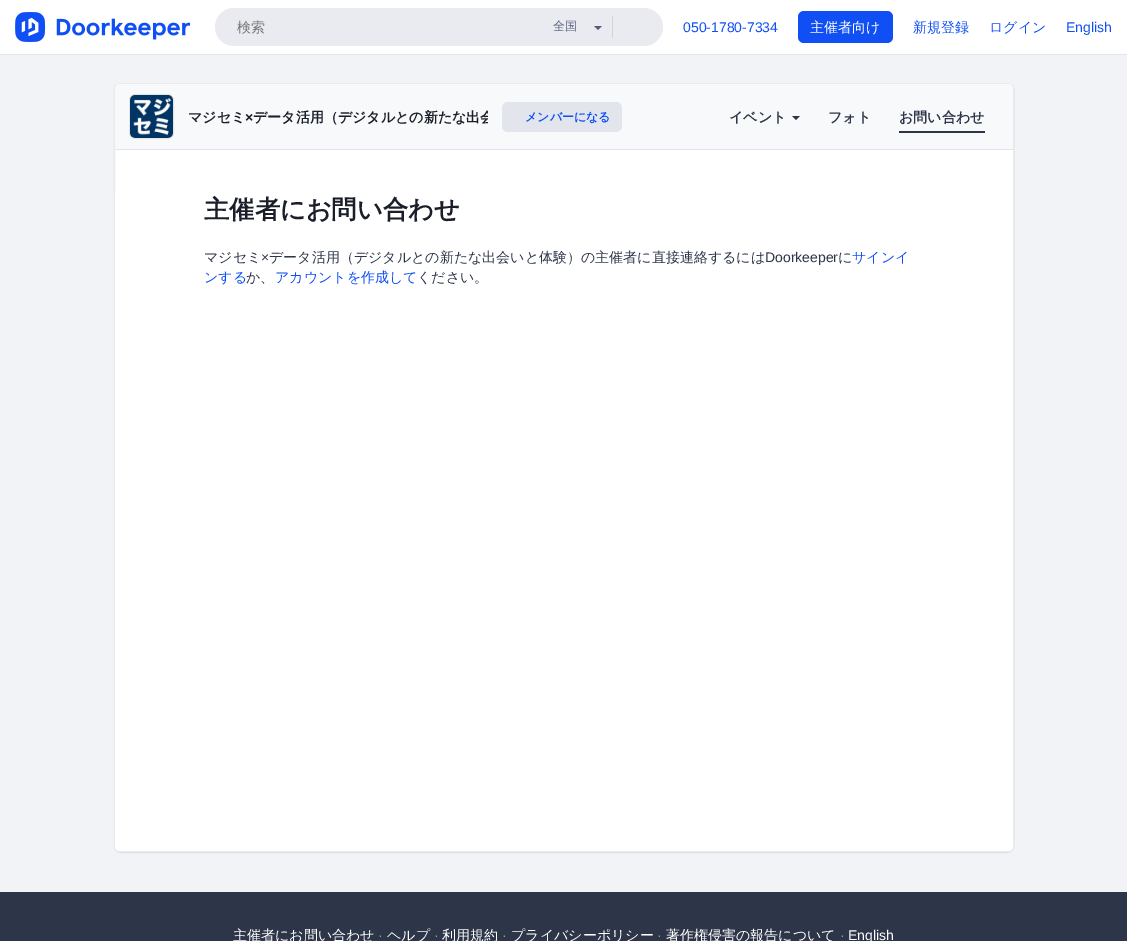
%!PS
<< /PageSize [1127 941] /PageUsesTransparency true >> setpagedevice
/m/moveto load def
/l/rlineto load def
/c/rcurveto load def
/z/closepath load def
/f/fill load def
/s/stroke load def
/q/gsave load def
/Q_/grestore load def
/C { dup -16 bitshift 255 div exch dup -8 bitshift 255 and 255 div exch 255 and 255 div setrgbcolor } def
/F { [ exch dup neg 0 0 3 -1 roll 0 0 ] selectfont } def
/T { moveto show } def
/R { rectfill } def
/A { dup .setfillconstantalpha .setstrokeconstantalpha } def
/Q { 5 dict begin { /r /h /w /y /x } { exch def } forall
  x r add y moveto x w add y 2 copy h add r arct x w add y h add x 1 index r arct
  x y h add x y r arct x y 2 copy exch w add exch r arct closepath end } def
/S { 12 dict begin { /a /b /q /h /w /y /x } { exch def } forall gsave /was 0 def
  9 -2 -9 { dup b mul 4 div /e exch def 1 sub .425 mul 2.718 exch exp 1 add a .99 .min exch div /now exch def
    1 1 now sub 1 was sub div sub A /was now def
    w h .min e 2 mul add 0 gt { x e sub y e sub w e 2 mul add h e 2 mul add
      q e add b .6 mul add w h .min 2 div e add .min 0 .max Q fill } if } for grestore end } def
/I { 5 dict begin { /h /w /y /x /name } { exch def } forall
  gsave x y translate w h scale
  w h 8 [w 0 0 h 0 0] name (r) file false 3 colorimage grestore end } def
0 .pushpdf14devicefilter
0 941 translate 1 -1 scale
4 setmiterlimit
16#FFFFFF C
0 0 1127 941 R
16#E3E5EC C
0 54 1127 1 R
(1.rgb) 15 12 176 30 I
16#E9EBF0 C
215 8 448 38 19 Q f
/WenQuanYiZenHei-Medium 14 F
16#757575 C
(検索) 237 32 T
16#D2D4D8 C
612 16 1 22 R
/WenQuanYiZenHei-Medium 12 F
16#535E7C C
(全国) 553 30 T
594 26 m 8 0 l -4 4 l z f
/LiberationSans-Regular 14 F
16#0F4FF4 C
(050-1780-7334) 683 32 T
798 11 95 32 6 Q f
/WenQuanYiZenHei-Medium 14 F
16#FFFFFF C
(主催者向け) 810 32 T
16#0F4FF4 C
(新規登録) 913 32 T
(ログイン) 989 32 T
/LiberationSans-Regular 14 F
(English) 1066 32 T
16#F2F3F6 C
0 55 1127 837 R
16#000000 C
114 84 900 769 6 .5 .05 S
16#FFFFFF C
114 83 900 769 6 Q f
0.1 A
16#2C3146 C
114.5 83.5 899 768 5.5 Q s
1 A
16#F8F9FA C
120 84 m 888 0 l 3 0 5 2 5 5 c 0 61 l -898 0 l 0 -61 l 0 -3 2 -5 5 -5 c z f
16#E3E5EC C
115 149 898 1 R
16#E4E5E6 C
129.5 94.5 44 44 5.5 Q s
(2.rgb) 130 95 43 43 I
/WenQuanYiZenHei-Bold 14 F
16#1A1E29 C
(マジセミ) 188 122 T
/LiberationSans-Bold 14 F
(×) 245 122 T
q
188 110 300 17 rectclip
/WenQuanYiZenHei-Bold 14 F
(データ活用（デジタルとの新たな出会) 253 122 T
Q_
16#E3E5EC C
502 102 120 30 6 Q f
/WenQuanYiZenHei-Bold 12 F
16#0F4FF4 C
(メンバーになる) 525 121 T
/WenQuanYiZenHei-Bold 14 F
16#2D3549 C
(イベント) 729 122 T
792 116 m 8 0 l -4 4 l z f
(フォト) 828 122 T
(お問い合わせ) 899 122 T
899 131 86 2 R
16#FFFFFF C
115 192 m 898 0 l 0 654 l 0 3 -2 5 -5 5 c -888 0 l -3 0 -5 -2 -5 -5 c z f
/WenQuanYiZenHei-Bold 25.25 F
16#1A1E29 C
(主催者にお問い合わせ) 204 218 T
/WenQuanYiZenHei-Medium 14 F
16#2D3549 C
(マジセミ) 204 262 T
/LiberationSans-Regular 14 F
(×) 261 262 T
/WenQuanYiZenHei-Medium 14 F
(データ活用（デジタルとの新たな出会いと体験）の主催者に直接連絡するには) 269 262 T
/LiberationSans-Regular 14 F
(Doorkeeper) 765 262 T
/WenQuanYiZenHei-Medium 14 F
(に) 838 262 T
16#0F4FF4 C
(サインイ) 852 262 T
(ンする) 204 282 T
16#2D3549 C
(か、) 246 282 T
16#0F4FF4 C
(アカウントを作成して) 275 282 T
16#2D3549 C
(ください。) 417 282 T
0 892 1127 49 R
16#FFFFFF C
(主催者にお問い合わせ) 233 940 T
/LiberationSans-Regular 14 F
16#999999 C
(·) 378 940 T
/WenQuanYiZenHei-Medium 14 F
16#FFFFFF C
(ヘルプ) 387 940 T
/LiberationSans-Regular 14 F
16#999999 C
(·) 434 940 T
/WenQuanYiZenHei-Medium 14 F
16#FFFFFF C
(利用規約) 442 940 T
/LiberationSans-Regular 14 F
16#999999 C
(·) 502 940 T
/WenQuanYiZenHei-Medium 14 F
16#FFFFFF C
(プライバシーポリシー) 511 940 T
/LiberationSans-Regular 14 F
16#999999 C
(·) 657 940 T
/WenQuanYiZenHei-Medium 14 F
16#FFFFFF C
(著作権侵害の報告について) 666 940 T
/LiberationSans-Regular 14 F
16#999999 C
(·) 840 940 T
16#FFFFFF C
(English) 848 940 T
.poppdf14devicefilter showpage
